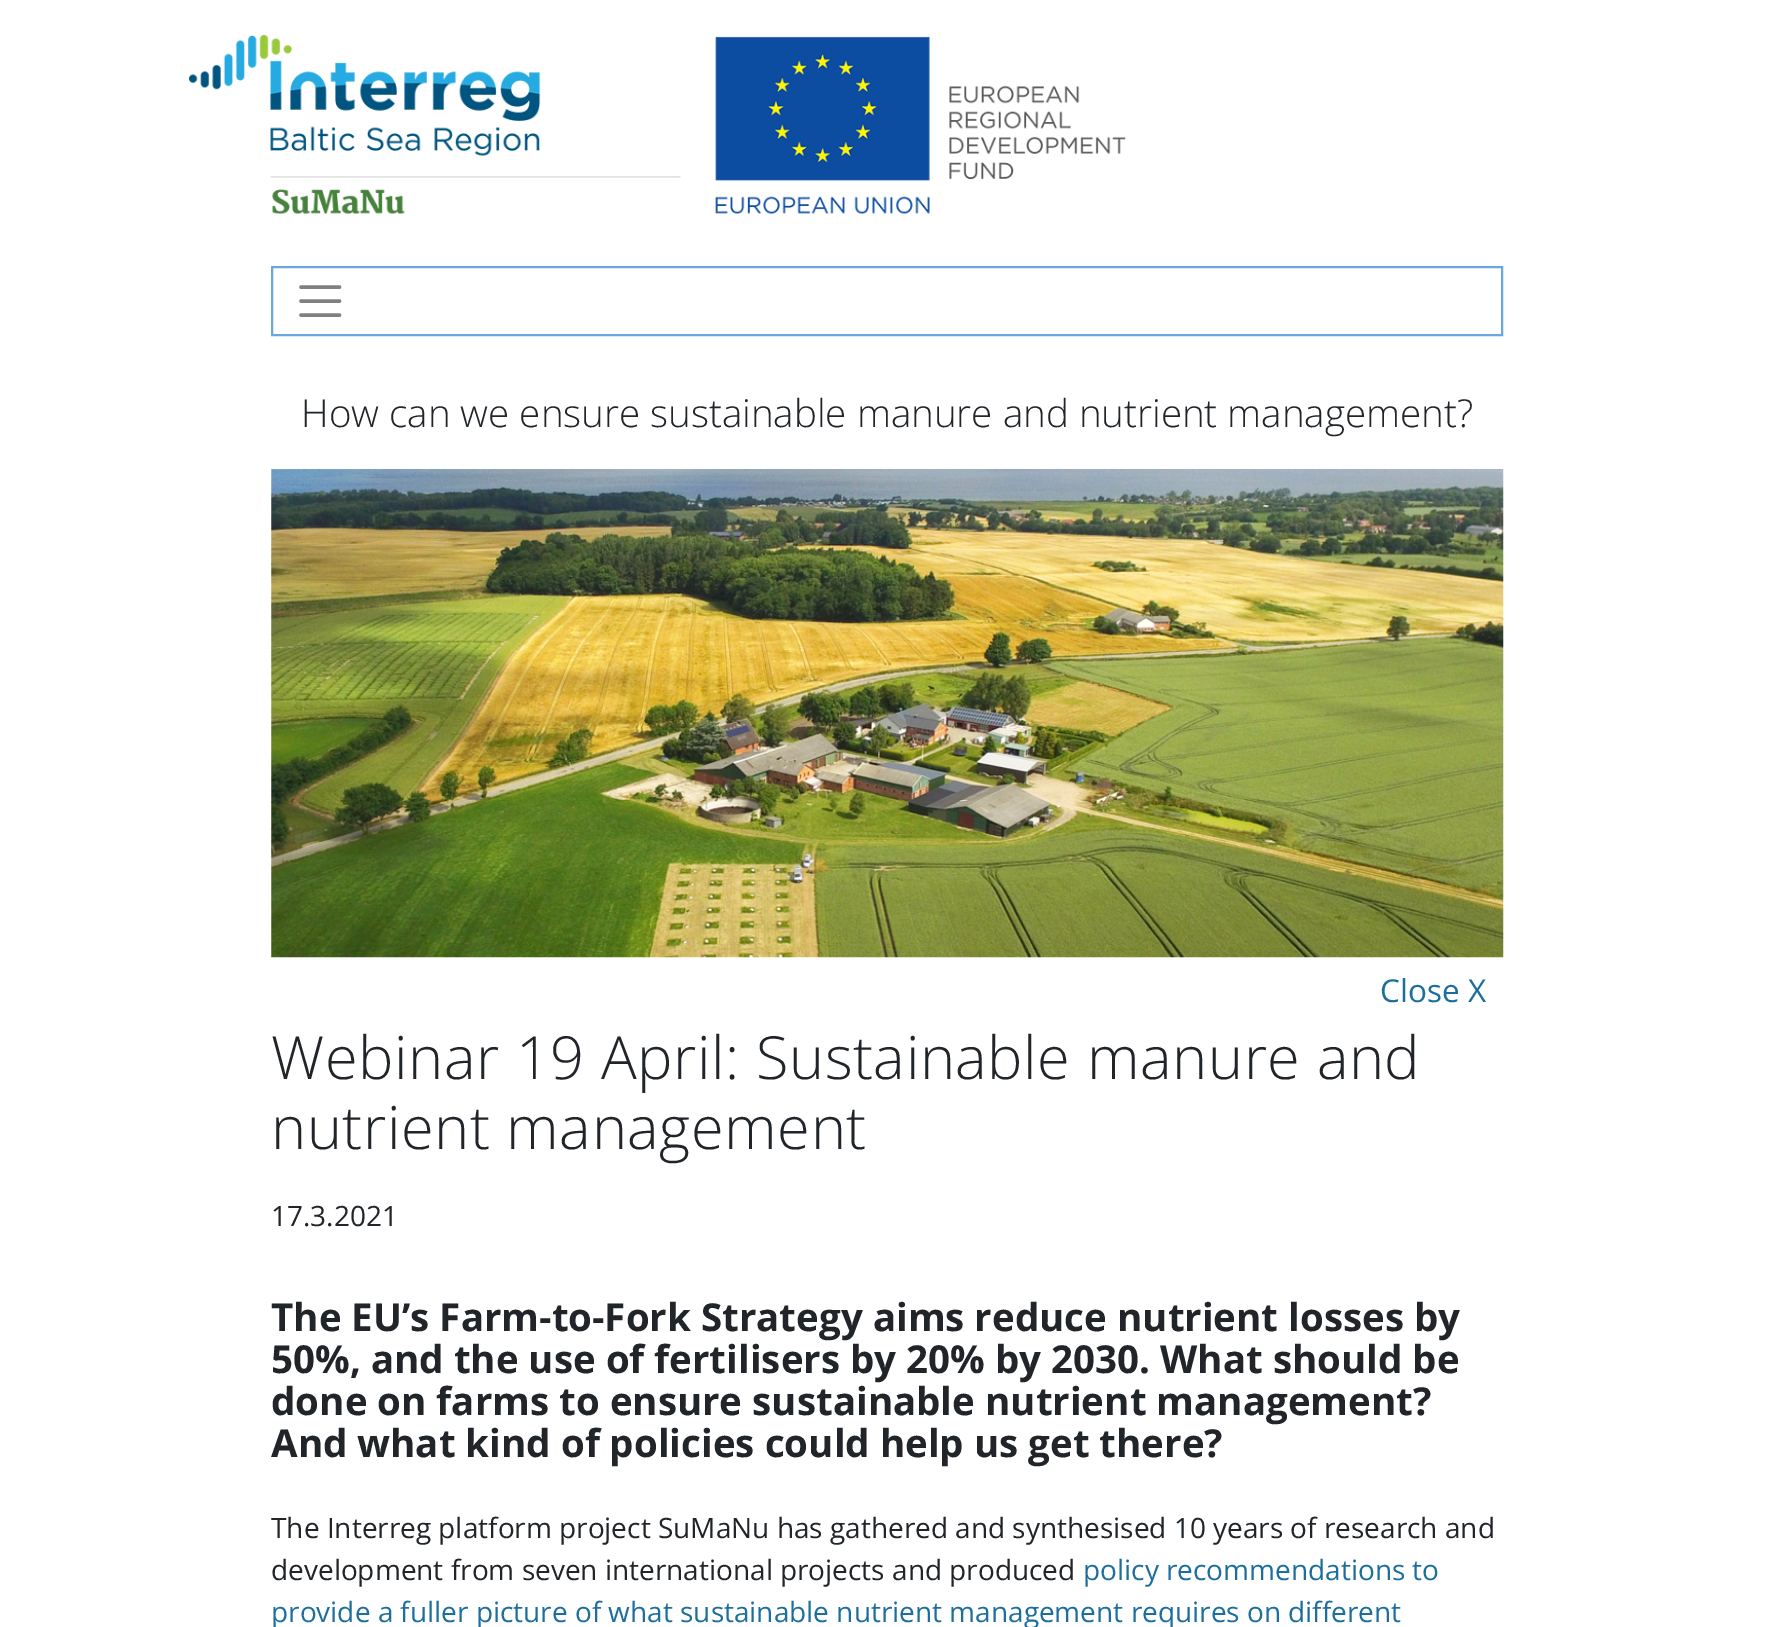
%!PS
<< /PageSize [1773 1627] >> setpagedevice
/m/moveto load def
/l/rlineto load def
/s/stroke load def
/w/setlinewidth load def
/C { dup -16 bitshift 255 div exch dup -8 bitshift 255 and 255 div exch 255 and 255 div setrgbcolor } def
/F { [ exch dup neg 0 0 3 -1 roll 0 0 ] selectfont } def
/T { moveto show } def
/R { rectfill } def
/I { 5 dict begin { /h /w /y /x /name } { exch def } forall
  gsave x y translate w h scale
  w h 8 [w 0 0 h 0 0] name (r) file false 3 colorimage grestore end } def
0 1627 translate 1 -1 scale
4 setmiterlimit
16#FFFFFF C
0 0 1773 1627 R
(1.rgb) 189 35 937 179 I
16#69A8DE C
2 w
272 267 1230 68 rectstroke
16#808080 C
3.5 w
1 setlinecap
301 287 m 38.5 0 l 301 301 m 38.5 0 l 301 315 m 38.5 0 l s
/OpenSans-Light 38.5 F
16#212529 C
(How can we ensure sustainable manure and nutrient management?) 301 427 T
(2.rgb) 271 469 1233 489 I
/OpenSans-Regular 31.5 F
16#1C6F9D C
(Close X) 1380 1002 T
/OpenSans-Light 59.5 F
16#212529 C
271 1079 m .6 0 (Webinar 19 April: Sustainable manure and) ashow
271 1149 m .6 0 (nutrient management) ashow
/OpenSans-Regular 28 F
(17.3.2021) 271 1226 T
/OpenSans-Bold 38.5 F
(The EU’s Farm-to-Fork Strategy aims reduce nutrient losses by) 271 1331 T
(50%, and the use of fertilisers by 20% by 2030. What should be) 271 1373 T
(done on farms to ensure sustainable nutrient management?) 271 1415 T
(And what kind of policies could help us get there?) 271 1457 T
/OpenSans-Regular 28 F
(The Interreg platform project SuMaNu has gathered and synthesised 10 years of research and) 271 1538 T
(development from seven international projects and produced) 271 1580 T
16#1C6F9D C
(policy recommendations to) 1083 1580 T
(provide a fuller picture of what sustainable nutrient management requires on different) 271 1622 T
showpage
